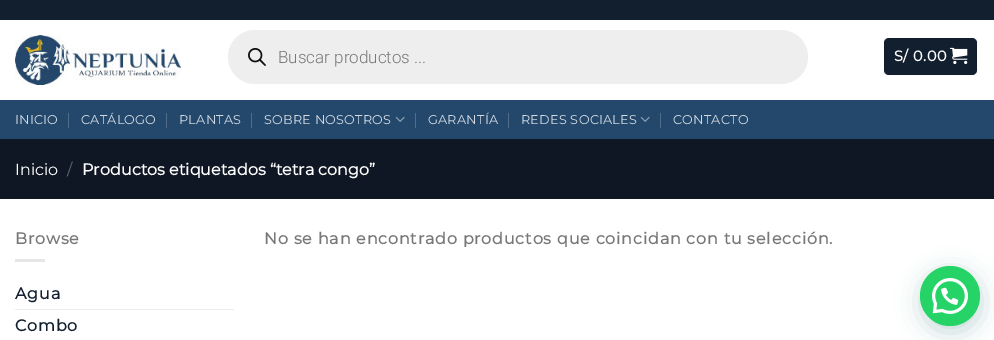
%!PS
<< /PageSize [994 340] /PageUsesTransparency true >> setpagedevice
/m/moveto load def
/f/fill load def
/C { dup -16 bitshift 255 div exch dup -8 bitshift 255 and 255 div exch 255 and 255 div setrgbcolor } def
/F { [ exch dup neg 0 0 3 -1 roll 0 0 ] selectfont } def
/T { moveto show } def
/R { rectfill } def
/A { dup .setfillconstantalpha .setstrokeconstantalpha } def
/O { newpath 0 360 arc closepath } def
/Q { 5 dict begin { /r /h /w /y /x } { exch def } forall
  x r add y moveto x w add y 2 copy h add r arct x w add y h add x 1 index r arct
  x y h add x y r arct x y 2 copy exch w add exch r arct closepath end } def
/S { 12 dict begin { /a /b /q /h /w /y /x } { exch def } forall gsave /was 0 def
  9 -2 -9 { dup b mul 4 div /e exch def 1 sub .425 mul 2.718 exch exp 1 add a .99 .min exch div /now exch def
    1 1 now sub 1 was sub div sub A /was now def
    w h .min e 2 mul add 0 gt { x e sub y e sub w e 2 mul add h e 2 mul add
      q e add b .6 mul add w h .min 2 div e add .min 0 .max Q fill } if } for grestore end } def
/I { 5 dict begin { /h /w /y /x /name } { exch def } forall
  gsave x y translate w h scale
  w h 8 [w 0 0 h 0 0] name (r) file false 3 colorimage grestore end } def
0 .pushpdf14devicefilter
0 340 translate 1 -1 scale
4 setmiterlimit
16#FFFFFF C
0 0 994 340 R
16#121F2F C
0 0 994 20 R
(1.rgb) 15 35 166 50 I
16#EEEEEE C
228 30 580 54 27 Q f
(2.rgb) 248 48 18 18 I
/Roboto-Light 17 F
16#777777 C
(Buscar productos ...) 278 63 T
16#121F2F C
884 38 93 37 5 Q f
0.05 A
16#000000 C
884.5 38.5 92 36 rectstroke
/Montserrat-Bold 14.5 F
1 A
16#FFFFFF C
894 61 m .5 0 (S/ 0.00) ashow
(3.rgb) 950 47 18 18 I
16#24486C C
0 100 994 39 R
/Montserrat-Thin 12.75 F
16#D3DAE2 C
15 124 m .25 0 (INICIO) ashow
16#506D89 C
68 113 1 15 R
16#D3DAE2 C
81 124 m .25 0 (CATÁLOGO) ashow
16#506D89 C
166 113 1 15 R
16#D3DAE2 C
179 124 m .25 0 (PLANTAS) ashow
16#506D89 C
251 113 1 15 R
16#D3DAE2 C
264 124 m .25 0 (SOBRE NOSOTROS) ashow
(4.rgb) 395 116 10 6 I
16#506D89 C
415 113 1 15 R
16#D3DAE2 C
428 124 m .25 0 (GARANTÍA) ashow
16#506D89 C
508 113 1 15 R
16#D3DAE2 C
521 124 m .25 0 (REDES SOCIALES) ashow
(4.rgb) 640 116 10 6 I
16#506D89 C
660 113 1 15 R
16#D3DAE2 C
673 124 m .25 0 (CONTACTO) ashow
16#0E1723 C
0 139 994 60 R
/Montserrat-Thin 16 F
16#FFFFFF C
(Inicio) 15 175 T
16#626870 C
(/) 67 175 T
/Montserrat-Bold 16 F
16#FFFFFF C
(Productos etiquetados “tetra congo”) 82 175 T
16#777777 C
15 244 m .8 0 (Browse) ashow
16#E6E6E6 C
15 259 30 3 R
16#121F2F C
15 299 m .8 0 (Agua) ashow
16#ECECEC C
15 309 219 1 R
16#121F2F C
15 331 m .8 0 (Combo) ashow
16#777777 C
264 244 m .8 0 (No se han encontrado productos que coincidan con tu selección.) ashow
16#075E54 C
921 272 60 60 30 12 .24 S
16#25D366 C
950 296 30 O f
(5.rgb) 932 278 36 36 I
.poppdf14devicefilter showpage
